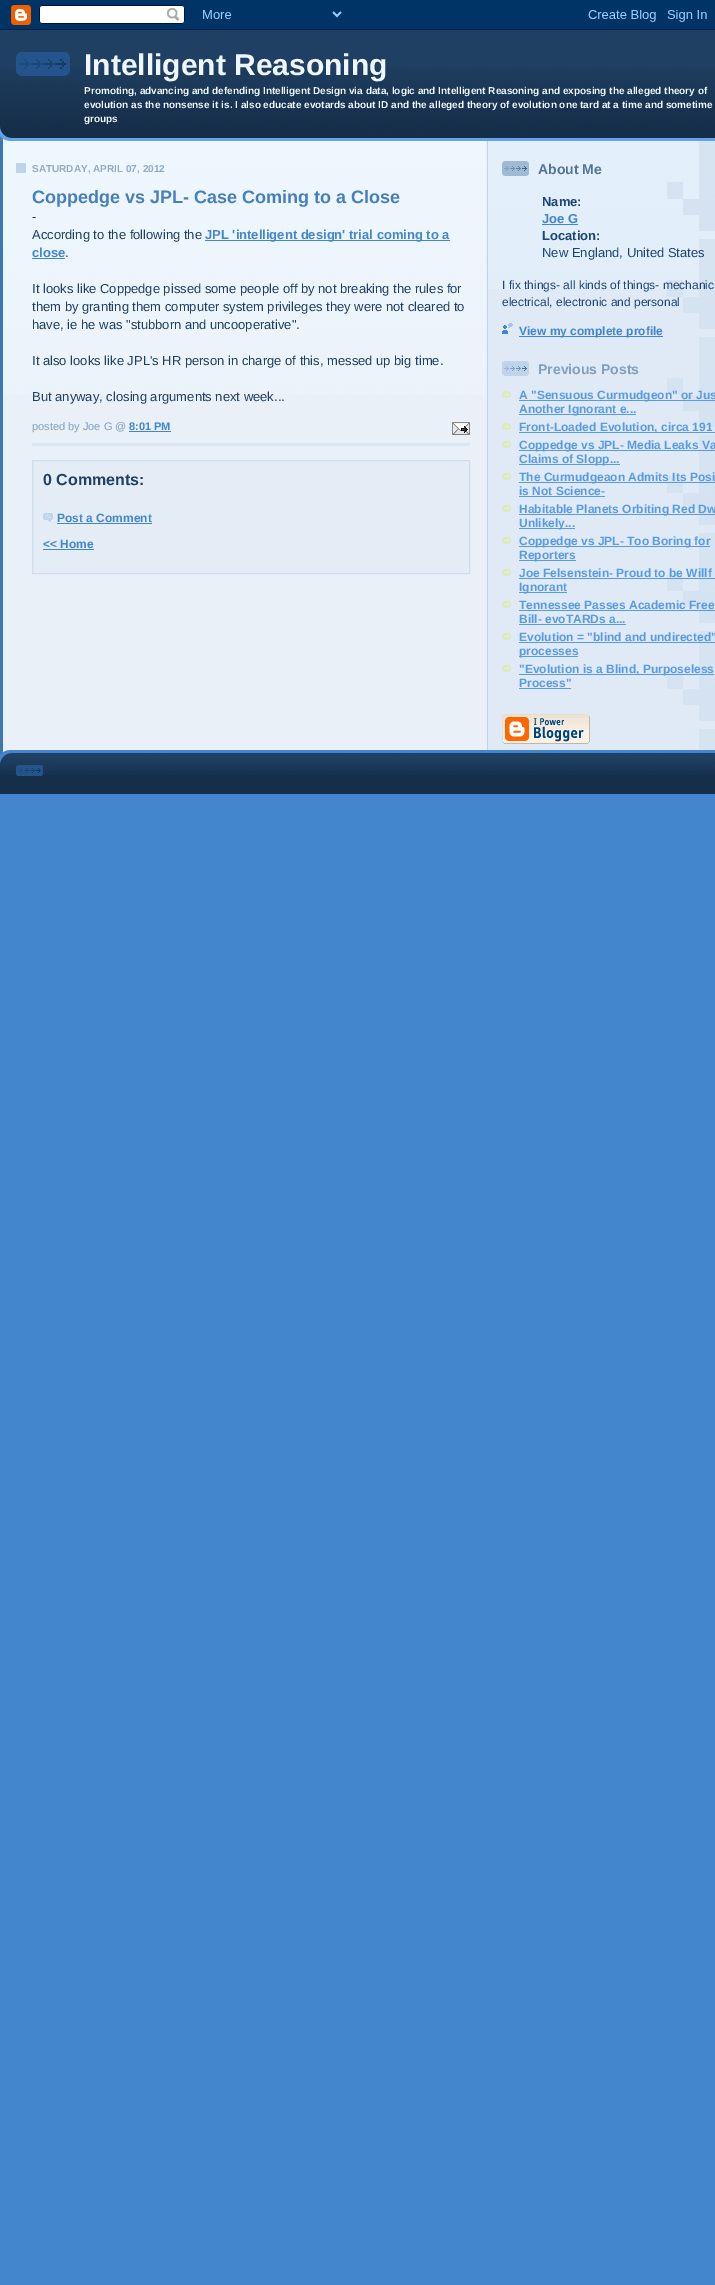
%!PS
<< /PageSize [715 2285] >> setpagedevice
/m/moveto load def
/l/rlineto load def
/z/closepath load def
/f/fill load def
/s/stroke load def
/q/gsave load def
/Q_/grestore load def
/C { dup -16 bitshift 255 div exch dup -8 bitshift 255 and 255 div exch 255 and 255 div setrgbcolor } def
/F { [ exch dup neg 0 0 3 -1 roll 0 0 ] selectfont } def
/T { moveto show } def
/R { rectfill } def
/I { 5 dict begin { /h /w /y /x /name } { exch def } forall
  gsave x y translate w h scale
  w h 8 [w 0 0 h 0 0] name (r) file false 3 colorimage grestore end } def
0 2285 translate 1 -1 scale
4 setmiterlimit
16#4386CE C
0 0 715 2285 R
(1.rgb) 0 131 715 10 I
(2.rgb) 0 0 715 30 I
(3.rgb) 0 126 715 15 I
16#204063 C
0 30 715 37 R
(4.rgb) 0 67 715 59 I
(5.rgb) 16 52 54 24 I
/LiberationSans-Bold 30 F
16#EEF6FE C
(Intelligent Reasoning) 84 75 T
/LiberationSans-Bold 10 F
(Promoting, advancing and defending Intelligent Design via data, logic and Intelligent Reasoning and exposing the alleged theory of) 84 94 T
(evolution as the nonsense it is. I also educate evotards about ID and the alleged theory of evolution one tard at a time and sometime) 84 108 T
(groups) 84 122 T
(6.rgb) 0 141 715 609 I
(7.rgb) 3 141 483 254 I
16#BDD4EB C
16 163 10 10 R
16#8FACC8 C
(SATURDAY, APRIL 07, 2012) 32 172 T
16#D8E7F7 C
32 443 438 3 R
/LiberationSans-Bold 18 F
16#477FBA C
(Coppedge vs JPL- Case Coming to a Close) 32 203 T
/LiberationSans-Regular 13 F
16#204063 C
(-) 32 221 T
(According to the following the) 32 239 T
16#4386CE C
205 240 245 1 R
/LiberationSans-Bold 13 F
(JPL 'intelligent design' trial coming to a) 205 239 T
(close) 32 257 T
32 258 33 1 R
/LiberationSans-Regular 13 F
16#204063 C
(.) 65 257 T
(It looks like Coppedge pissed some people off by not breaking the rules for) 32 293 T
(them by granting them computer system privileges they were not cleared to) 32 311 T
(have, ie he was "stubborn and uncooperative".) 32 329 T
(It also looks like JPL's HR person in charge of this, messed up big time.) 32 365 T
(But anyway, closing arguments next week...) 32 401 T
/LiberationSans-Regular 11 F
16#809FBD C
(posted by Joe G @) 32 430 T
/LiberationSans-Bold 11 F
16#4386CE C
(8:01 PM) 129 430 T
129 431 42 1 R
(8.rgb) 452 422 18 13 I
16#E4ECF5 C
32.5 460.5 m 437 0 l 0 113 l -437 0 l z q f Q_
16#CEDEF0 C
s
/LiberationSans-Bold 16 F
16#204063 C
(0 Comments:) 43 485 T
(9.rgb) 43 513 10 9 I
/LiberationSans-Bold 12 F
16#4386CE C
(Post a Comment) 57 522 T
57 523 95 1 R
(<< Home) 43 548 T
43 549 51 1 R
(10.rgb) 488 141 227 148 I
(11.rgb) 667 141 48 609 I
(12.rgb) 502 161 27 15 I
/LiberationSans-Bold 14 F
16#527595 C
(About Me) 538 174 T
/LiberationSans-Bold 13 F
16#1C4676 C
(Name:) 542 206 T
16#4386CE C
(Joe G) 542 223 T
542 224 36 1 R
16#1C4676 C
(Location:) 542 240 T
/LiberationSans-Regular 13 F
(New England, United States) 542 257 T
/LiberationSans-Regular 12 F
(I fix things- all kinds of things- mechanic) 502 289 T
(electrical, electronic and personal) 502 306 T
(13.rgb) 502 323 11 11 I
16#4386CE C
519 336 144 1 R
/LiberationSans-Bold 12 F
(View my complete profile) 519 335 T
(14.rgb) 502 361 27 15 I
/LiberationSans-Bold 14 F
16#809FBD C
(Previous Posts) 538 374 T
(15.rgb) 502 391 9 7 I
16#599BE2 C
519 400 196 1 R
/LiberationSans-Bold 12 F
(A "Sensuous Curmudgeon" or Jus) 519 399 T
519 414 117 1 R
(Another Ignorant e...) 519 413 T
(15.rgb) 502 423 9 7 I
519 432 196 1 R
(Front-Loaded Evolution, circa 191) 519 431 T
(15.rgb) 502 441 9 7 I
519 450 196 1 R
(Coppedge vs JPL- Media Leaks Va) 519 449 T
519 464 101 1 R
(Claims of Slopp...) 519 463 T
(15.rgb) 502 473 9 7 I
519 482 196 1 R
(The Curmudgeaon Admits Its Posi) 519 481 T
(is Not Science-) 519 495 T
519 496 86 1 R
(15.rgb) 502 505 9 7 I
519 514 196 1 R
(Habitable Planets Orbiting Red Dw) 519 513 T
519 528 56 1 R
(Unlikely...) 519 527 T
(15.rgb) 502 537 9 7 I
519 546 191 1 R
(Coppedge vs JPL- Too Boring for) 519 545 T
519 560 57 1 R
(Reporters) 519 559 T
(15.rgb) 502 569 9 7 I
(Joe Felsenstein- Proud to be Willf) 519 577 T
519 578 196 1 R
519 592 48 1 R
(Ignorant) 519 591 T
(15.rgb) 502 601 9 7 I
(Tennessee Passes Academic Free) 519 609 T
519 610 196 1 R
(Bill- evoTARDs a...) 519 623 T
519 624 107 1 R
(15.rgb) 502 633 9 7 I
(Evolution = "blind and undirected") 519 641 T
519 642 196 1 R
519 656 59 1 R
(processes) 519 655 T
(15.rgb) 502 665 9 7 I
519 674 195 1 R
("Evolution is a Blind, Purposeless) 519 673 T
(Process") 519 687 T
519 688 52 1 R
(16.rgb) 502 714 88 30 I
(17.rgb) 0 750 715 15 I
16#152E49 C
0 775 715 19 R
(18.rgb) 0 765 715 10 I
(19.rgb) 16 765 27 11 I
showpage
